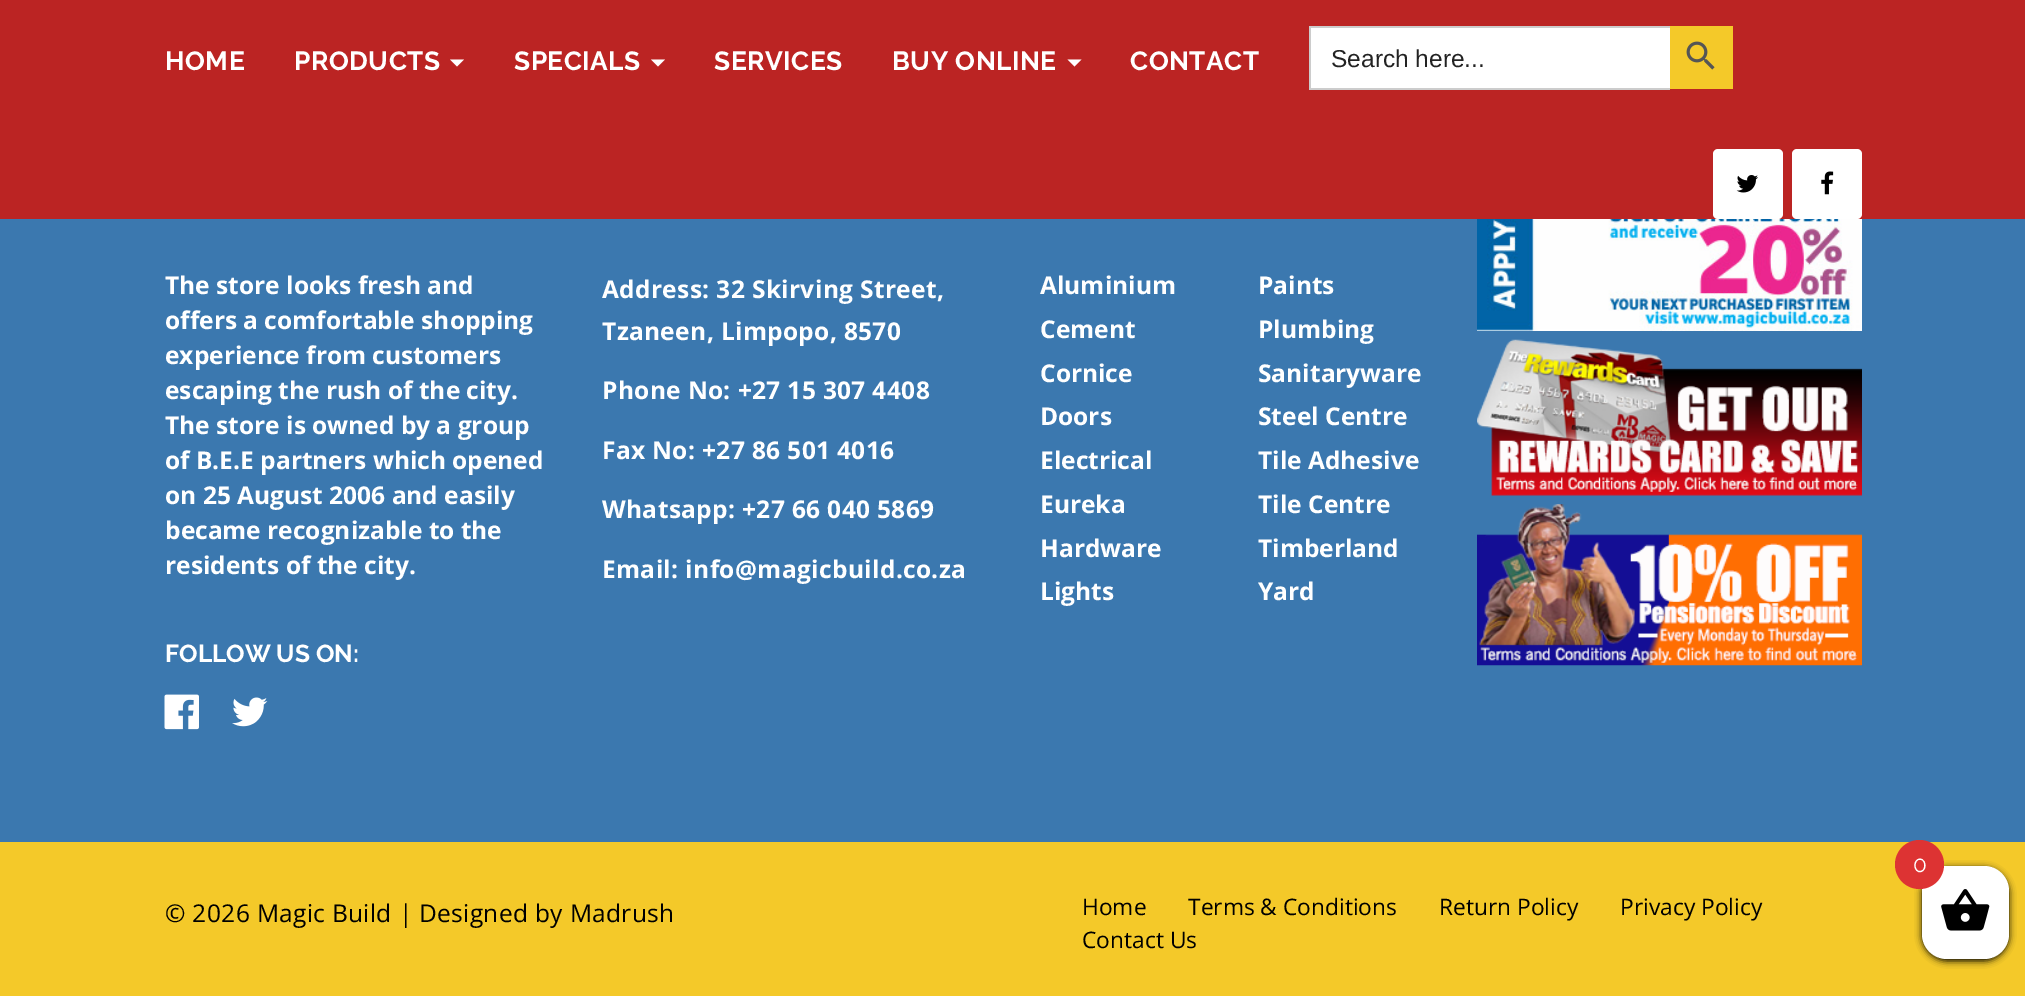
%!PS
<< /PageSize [2025 996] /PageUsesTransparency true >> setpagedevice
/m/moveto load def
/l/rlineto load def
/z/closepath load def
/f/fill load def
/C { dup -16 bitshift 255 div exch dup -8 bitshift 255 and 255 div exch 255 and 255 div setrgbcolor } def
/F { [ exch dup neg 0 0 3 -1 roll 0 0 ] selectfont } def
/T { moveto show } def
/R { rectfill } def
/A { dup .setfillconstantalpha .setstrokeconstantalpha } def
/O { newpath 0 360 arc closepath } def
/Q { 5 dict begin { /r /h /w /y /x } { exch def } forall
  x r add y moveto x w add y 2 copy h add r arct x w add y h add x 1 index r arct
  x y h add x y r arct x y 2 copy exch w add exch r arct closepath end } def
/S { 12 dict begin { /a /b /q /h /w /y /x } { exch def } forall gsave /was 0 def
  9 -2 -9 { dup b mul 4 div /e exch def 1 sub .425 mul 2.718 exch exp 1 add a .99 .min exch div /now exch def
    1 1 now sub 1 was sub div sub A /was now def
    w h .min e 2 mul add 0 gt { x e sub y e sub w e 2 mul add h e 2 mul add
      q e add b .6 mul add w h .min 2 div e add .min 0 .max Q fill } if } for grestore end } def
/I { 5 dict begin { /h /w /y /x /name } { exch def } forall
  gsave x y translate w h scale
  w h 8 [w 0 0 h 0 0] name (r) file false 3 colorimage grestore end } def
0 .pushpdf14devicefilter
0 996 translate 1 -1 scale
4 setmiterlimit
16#3B78AF C
0 0 2025 996 R
16#BB2423 C
0 0 2025 219 R
/Raleway-Bold 26.25 F
16#FFFFFF C
165 70 m .5 0 (HOME) ashow
294 70 m .5 0 (PRODUCTS) ashow
450 59.5 m 14 0 l -7 7 l z f
514 70 m .5 0 (SPECIALS) ashow
651 59.5 m 14 0 l -7 7 l z f
714 70 m .5 0 (SERVICES) ashow
892 70 m .5 0 (BUY ONLINE) ashow
1067.5 59.5 m 14 0 l -7 7 l z f
1130 70 m .5 0 (CONTACT) ashow
1311 28 359 60 R
16#CCCCCC C
1309 26 361 2 R
1309 88 361 2 R
1309 26 2 63 R
/LiberationSans-Regular 24.5 F
16#232323 C
(Search here...) 1331 67 T
16#F4C929 C
1670 26 63 63 R
(1.rgb) 1686 41 29 29 I
16#FFFFFF C
1713 149 70 70 5 Q f
(2.rgb) 1736 175 22 18 I
1792 149 70 70 5 Q f
(3.rgb) 1821 171 13 24 I
/OpenSans-Bold 24.5 F
(The store looks fresh and) 165 294 T
(offers a comfortable shopping) 165 329 T
(experience from customers) 165 364 T
(escaping the rush of the city.) 165 399 T
(The store is owned by a group) 165 434 T
(of B.E.E partners which opened) 165 469 T
(on 25 August 2006 and easily) 165 504 T
(became recognizable to the) 165 539 T
(residents of the city.) 165 574 T
/Raleway-Bold 24.5 F
(FOLLOW US ON:) 165 662 T
(4.rgb) 164 694 35 36 I
(5.rgb) 232 697 36 30 I
/OpenSans-Bold 24.5 F
602 298 m .35 0 (Address: 32 Skirving Street,) ashow
602 340 m .35 0 (Tzaneen, Limpopo, 8570) ashow
602 399 m .35 0 (Phone No: +27 15 307 4408) ashow
602 459 m .35 0 (Fax No: +27 86 501 4016) ashow
602 518 m .35 0 (Whatsapp: +27 66 040 5869) ashow
602 578 m .35 0 (Email: info@magicbuild.co.za) ashow
(Aluminium) 1040 294 T
(Cement) 1040 338 T
(Cornice) 1040 382 T
(Doors) 1040 425 T
(Electrical) 1040 469 T
(Eureka) 1040 513 T
(Hardware) 1040 557 T
(Lights) 1040 600 T
(Paints) 1258 294 T
(Plumbing) 1258 338 T
(Sanitaryware) 1258 382 T
(Steel Centre) 1258 425 T
(Tile Adhesive) 1258 469 T
(Tile Centre) 1258 513 T
(Timberland) 1258 557 T
(Yard) 1258 600 T
(6.rgb) 1477 219 385 112 I
(7.rgb) 1477 339 385 157 I
(8.rgb) 1477 504 385 162 I
16#F4C929 C
0 842 2025 154 R
/OpenSans-Regular 24.5 F
16#000000 C
165 922 m .35 0 (© 2026 Magic Build | Designed by Madrush) ashow
/OpenSans-Regular 22.75 F
(Home) 1082 915 T
(Terms & Conditions) 1188 915 T
(Return Policy) 1439 915 T
(Privacy Policy) 1620 915 T
(Contact Us) 1082 948 T
1922 868 87 93 25 3.5 1 S
16#FFFFFF C
1922 866 87 93 25 Q f
16#DD3333 C
1919.5 864.5 24.5 O f
/Raleway-Regular 22.75 F
16#FFFFFF C
(0) 1913 872 T
(9.rgb) 1941 889 49 42 I
.poppdf14devicefilter showpage
